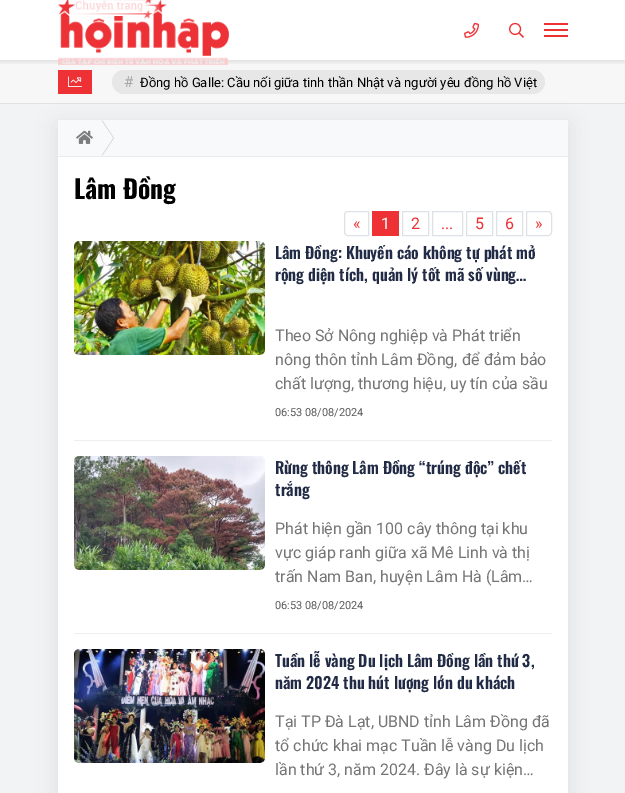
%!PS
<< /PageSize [625 793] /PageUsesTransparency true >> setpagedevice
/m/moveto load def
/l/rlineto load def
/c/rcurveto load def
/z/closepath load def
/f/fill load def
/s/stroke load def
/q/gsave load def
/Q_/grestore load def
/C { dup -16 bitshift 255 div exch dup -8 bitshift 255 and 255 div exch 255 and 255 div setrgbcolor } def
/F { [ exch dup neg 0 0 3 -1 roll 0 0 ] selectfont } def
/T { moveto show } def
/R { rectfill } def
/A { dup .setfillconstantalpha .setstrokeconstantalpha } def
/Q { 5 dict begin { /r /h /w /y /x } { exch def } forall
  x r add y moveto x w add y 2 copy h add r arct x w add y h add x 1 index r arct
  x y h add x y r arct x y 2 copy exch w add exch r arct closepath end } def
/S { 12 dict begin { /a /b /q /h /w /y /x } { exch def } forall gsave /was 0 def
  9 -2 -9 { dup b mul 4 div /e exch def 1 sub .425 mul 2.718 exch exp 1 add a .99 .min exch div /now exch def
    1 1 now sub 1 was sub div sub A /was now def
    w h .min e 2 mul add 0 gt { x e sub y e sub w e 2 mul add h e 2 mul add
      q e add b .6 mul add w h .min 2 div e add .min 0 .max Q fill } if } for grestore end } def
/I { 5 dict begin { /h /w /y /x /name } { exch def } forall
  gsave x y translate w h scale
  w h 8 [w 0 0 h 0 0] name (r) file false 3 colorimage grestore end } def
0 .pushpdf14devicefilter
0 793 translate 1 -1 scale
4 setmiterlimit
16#FFFFFF C
0 0 625 793 R
16#F7F7F7 C
0 60 625 43 R
16#EE3135 C
58 70 34 24 R
16#E7E7E7 C
112 70 433 24 12 Q f
q
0 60 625 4 rectclip
16#000000 C
0 2 625 60 0 2.5 .1 S
Q_
(1.rgb) 58 0 171 65 I
(2.rgb) 464 22 15 16 I
(3.rgb) 509 22 15 16 I
16#EE3135 C
544 29 24 2 R
544 23 24 2 R
544 35 24 2 R
16#E1E1E1 C
0 103 625 1 R
(4.rgb) 68 76 14 11 I
/Roboto-Regular 15 F
16#A7A7A7 C
(#) 124 87 T
/Roboto-Regular 13 F
16#000000 C
(Đồng hồ Galle: Cầu nối giữa tinh thần Nhật và người yêu đồng hồ Việt) 140 87 T
16#F2F3F5 C
0 104 625 689 R
16#000000 C
58 126 510 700 0 11 .08 S
16#FFFFFF C
58 157 510 636 R
16#F8F9FA C
58 120 510 36 R
16#EAEBEC C
58 156 510 1 R
(5.rgb) 76 130 17 14 I
16#D5D5D5 C
102 156 m 0 -36 l 12 18 l z f
16#F8F9FA C
101 156 m 0 -36 l 12 18 l z f
/Oswald-Bold 25.5 F
16#000000 C
(Lâm Đồng) 74 199 T
16#DEE2E6 C
348 211.5 m 20.5 0 l 0 24 l -20.5 0 l -2 0 -3.5 -1.5 -3.5 -3.5 c 0 -17 l 0 -2 1.5 -3.5 3.5 -3.5 c z s
/Roboto-Regular 16 F
16#EE3135 C
(«) 353 229 T
372 211 27 25 R
16#FFFFFF C
(1) 381 229 T
16#DEE2E6 C
402.5 211.5 26 24 rectstroke
16#EE3135 C
(2) 411 229 T
16#DEE2E6 C
466.5 211.5 26 24 rectstroke
16#EE3135 C
(5) 475 229 T
16#DEE2E6 C
496.5 211.5 26 24 rectstroke
16#EE3135 C
(6) 505 229 T
16#DEE2E6 C
526.5 211.5 m 21.5 0 l 2 0 3.5 1.5 3.5 3.5 c 0 17 l 0 2 -1.5 3.5 -3.5 3.5 c -21.5 0 l z s
16#EE3135 C
(») 535 229 T
16#DEE2E6 C
432.5 211.5 30 24 rectstroke
16#EE3135 C
(...) 441 229 T
16#EEEEEE C
74 440 478 1 R
(6.rgb) 74 241 191 114 I
/Oswald-SemiBold 16 F
16#222B45 C
(Lâm Đồng: Khuyến cáo không tự phát mở) 275 259 T
(rộng diện tích, quản lý tốt mã số vùng…) 275 281 T
/Roboto-Regular 16 F
16#757575 C
(Theo Sở Nông nghiệp và Phát triển) 275 341 T
(nông thôn tỉnh Lâm Đồng, để đảm bảo) 275 365 T
(chất lượng, thương hiệu, uy tín của sầu) 275 389 T
/Roboto-Regular 11 F
16#575757 C
(06:53 08/08/2024) 275 416 T
16#EEEEEE C
74 633 478 1 R
(7.rgb) 74 456 191 114 I
/Oswald-SemiBold 16 F
16#222B45 C
(Rừng thông Lâm Đồng “trúng độc” chết) 275 474 T
(trắng) 275 496 T
/Roboto-Regular 16 F
16#757575 C
(Phát hiện gần 100 cây thông tại khu) 275 534 T
(vực giáp ranh giữa xã Mê Linh và thị) 275 558 T
(trấn Nam Ban, huyện Lâm Hà \(Lâm…) 275 582 T
/Roboto-Regular 11 F
16#575757 C
(06:53 08/08/2024) 275 609 T
(8.rgb) 74 649 191 114 I
/Oswald-SemiBold 16 F
16#222B45 C
(Tuần lễ vàng Du lịch Lâm Đồng lần thứ 3,) 275 667 T
(năm 2024 thu hút lượng lớn du khách) 275 689 T
/Roboto-Regular 16 F
16#757575 C
(Tại TP Đà Lạt, UBND tỉnh Lâm Đồng đã) 275 727 T
(tổ chức khai mạc Tuần lễ vàng Du lịch) 275 751 T
(lần thứ 3, năm 2024. Đây là sự kiện…) 275 775 T
.poppdf14devicefilter showpage
